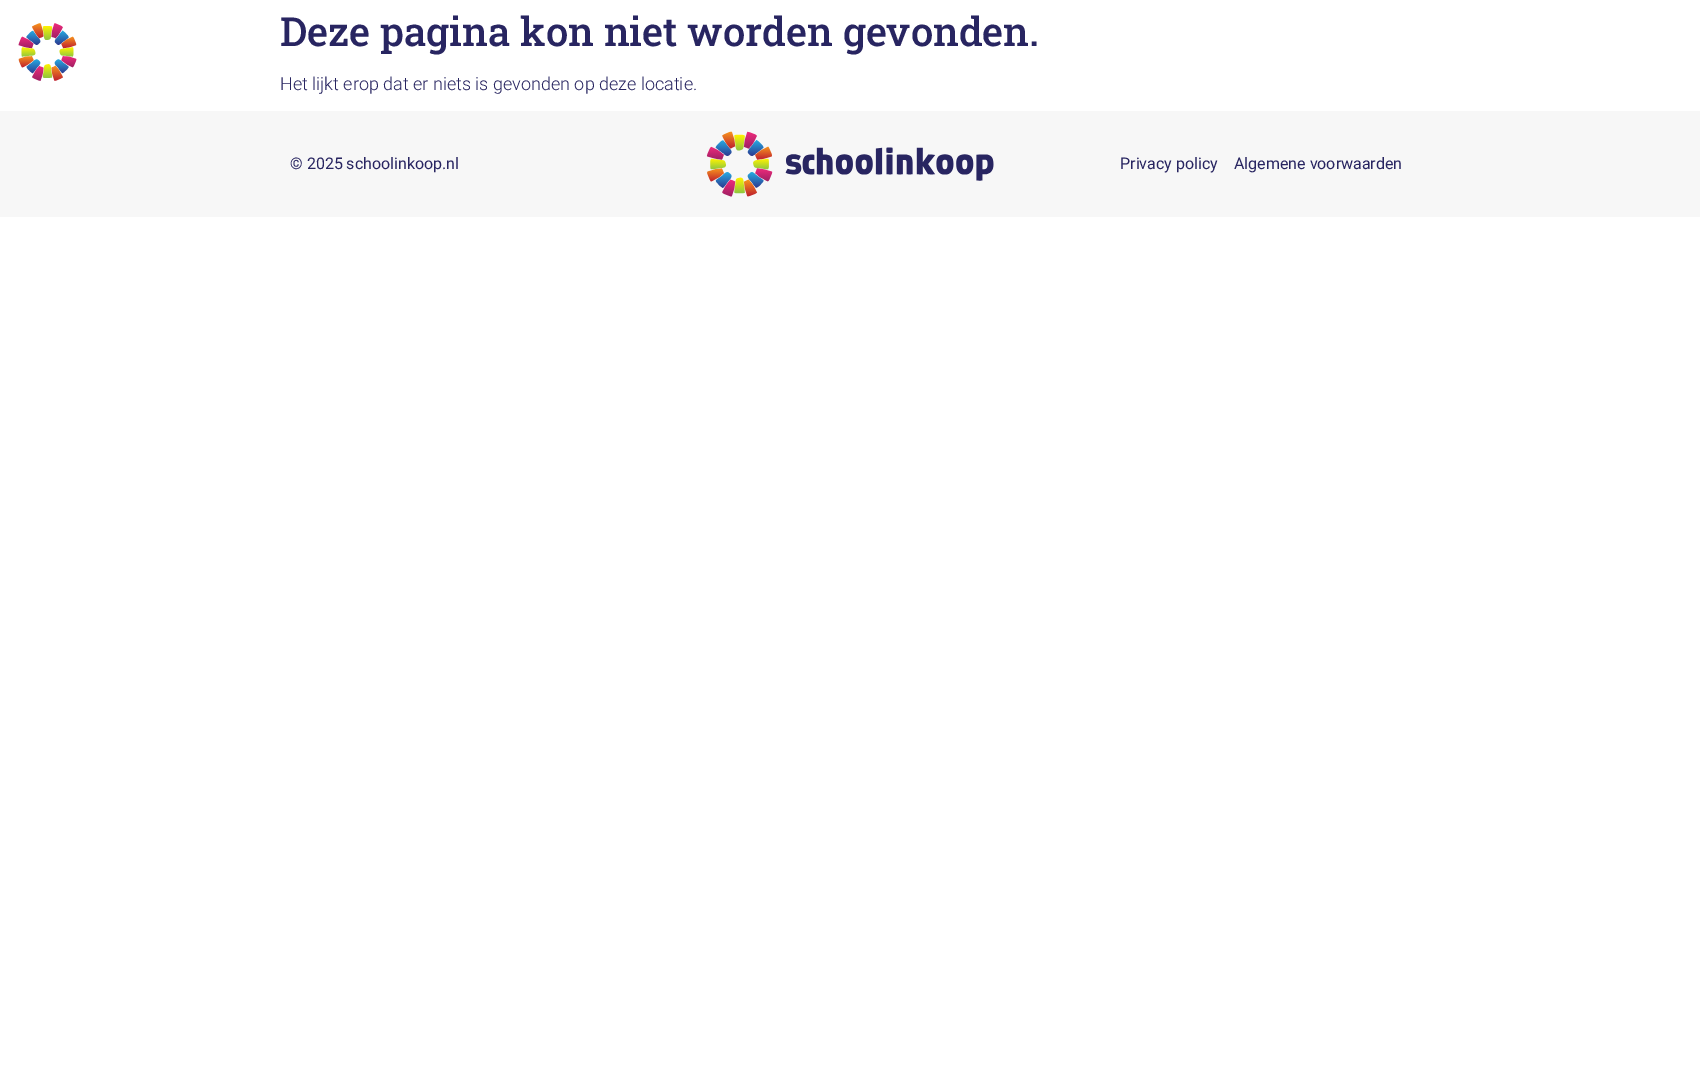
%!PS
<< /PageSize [1700 1077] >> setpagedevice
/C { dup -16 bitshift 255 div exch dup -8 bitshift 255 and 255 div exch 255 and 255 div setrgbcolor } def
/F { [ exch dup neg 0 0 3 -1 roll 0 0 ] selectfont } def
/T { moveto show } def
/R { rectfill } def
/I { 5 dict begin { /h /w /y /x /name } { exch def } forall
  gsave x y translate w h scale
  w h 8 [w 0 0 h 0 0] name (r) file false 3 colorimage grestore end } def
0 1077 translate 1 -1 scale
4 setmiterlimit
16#FFFFFF C
0 0 1700 1077 R
(1.rgb) 18 23 59 58 I
/RobotoSlab-Medium 40 F
16#282561 C
(Deze pagina kon niet worden gevonden.) 280 46 T
/Roboto-Light 18 F
(Het lijkt erop dat er niets is gevonden op deze locatie.) 280 90 T
16#F7F7F7 C
0 111 1700 106 R
/Roboto-Regular 16 F
16#282561 C
(© 2025 schoolinkoop.nl) 290 169 T
(2.rgb) 706 131 288 66 I
(Privacy policy) 1120 169 T
(Algemene voorwaarden) 1234 169 T
showpage
